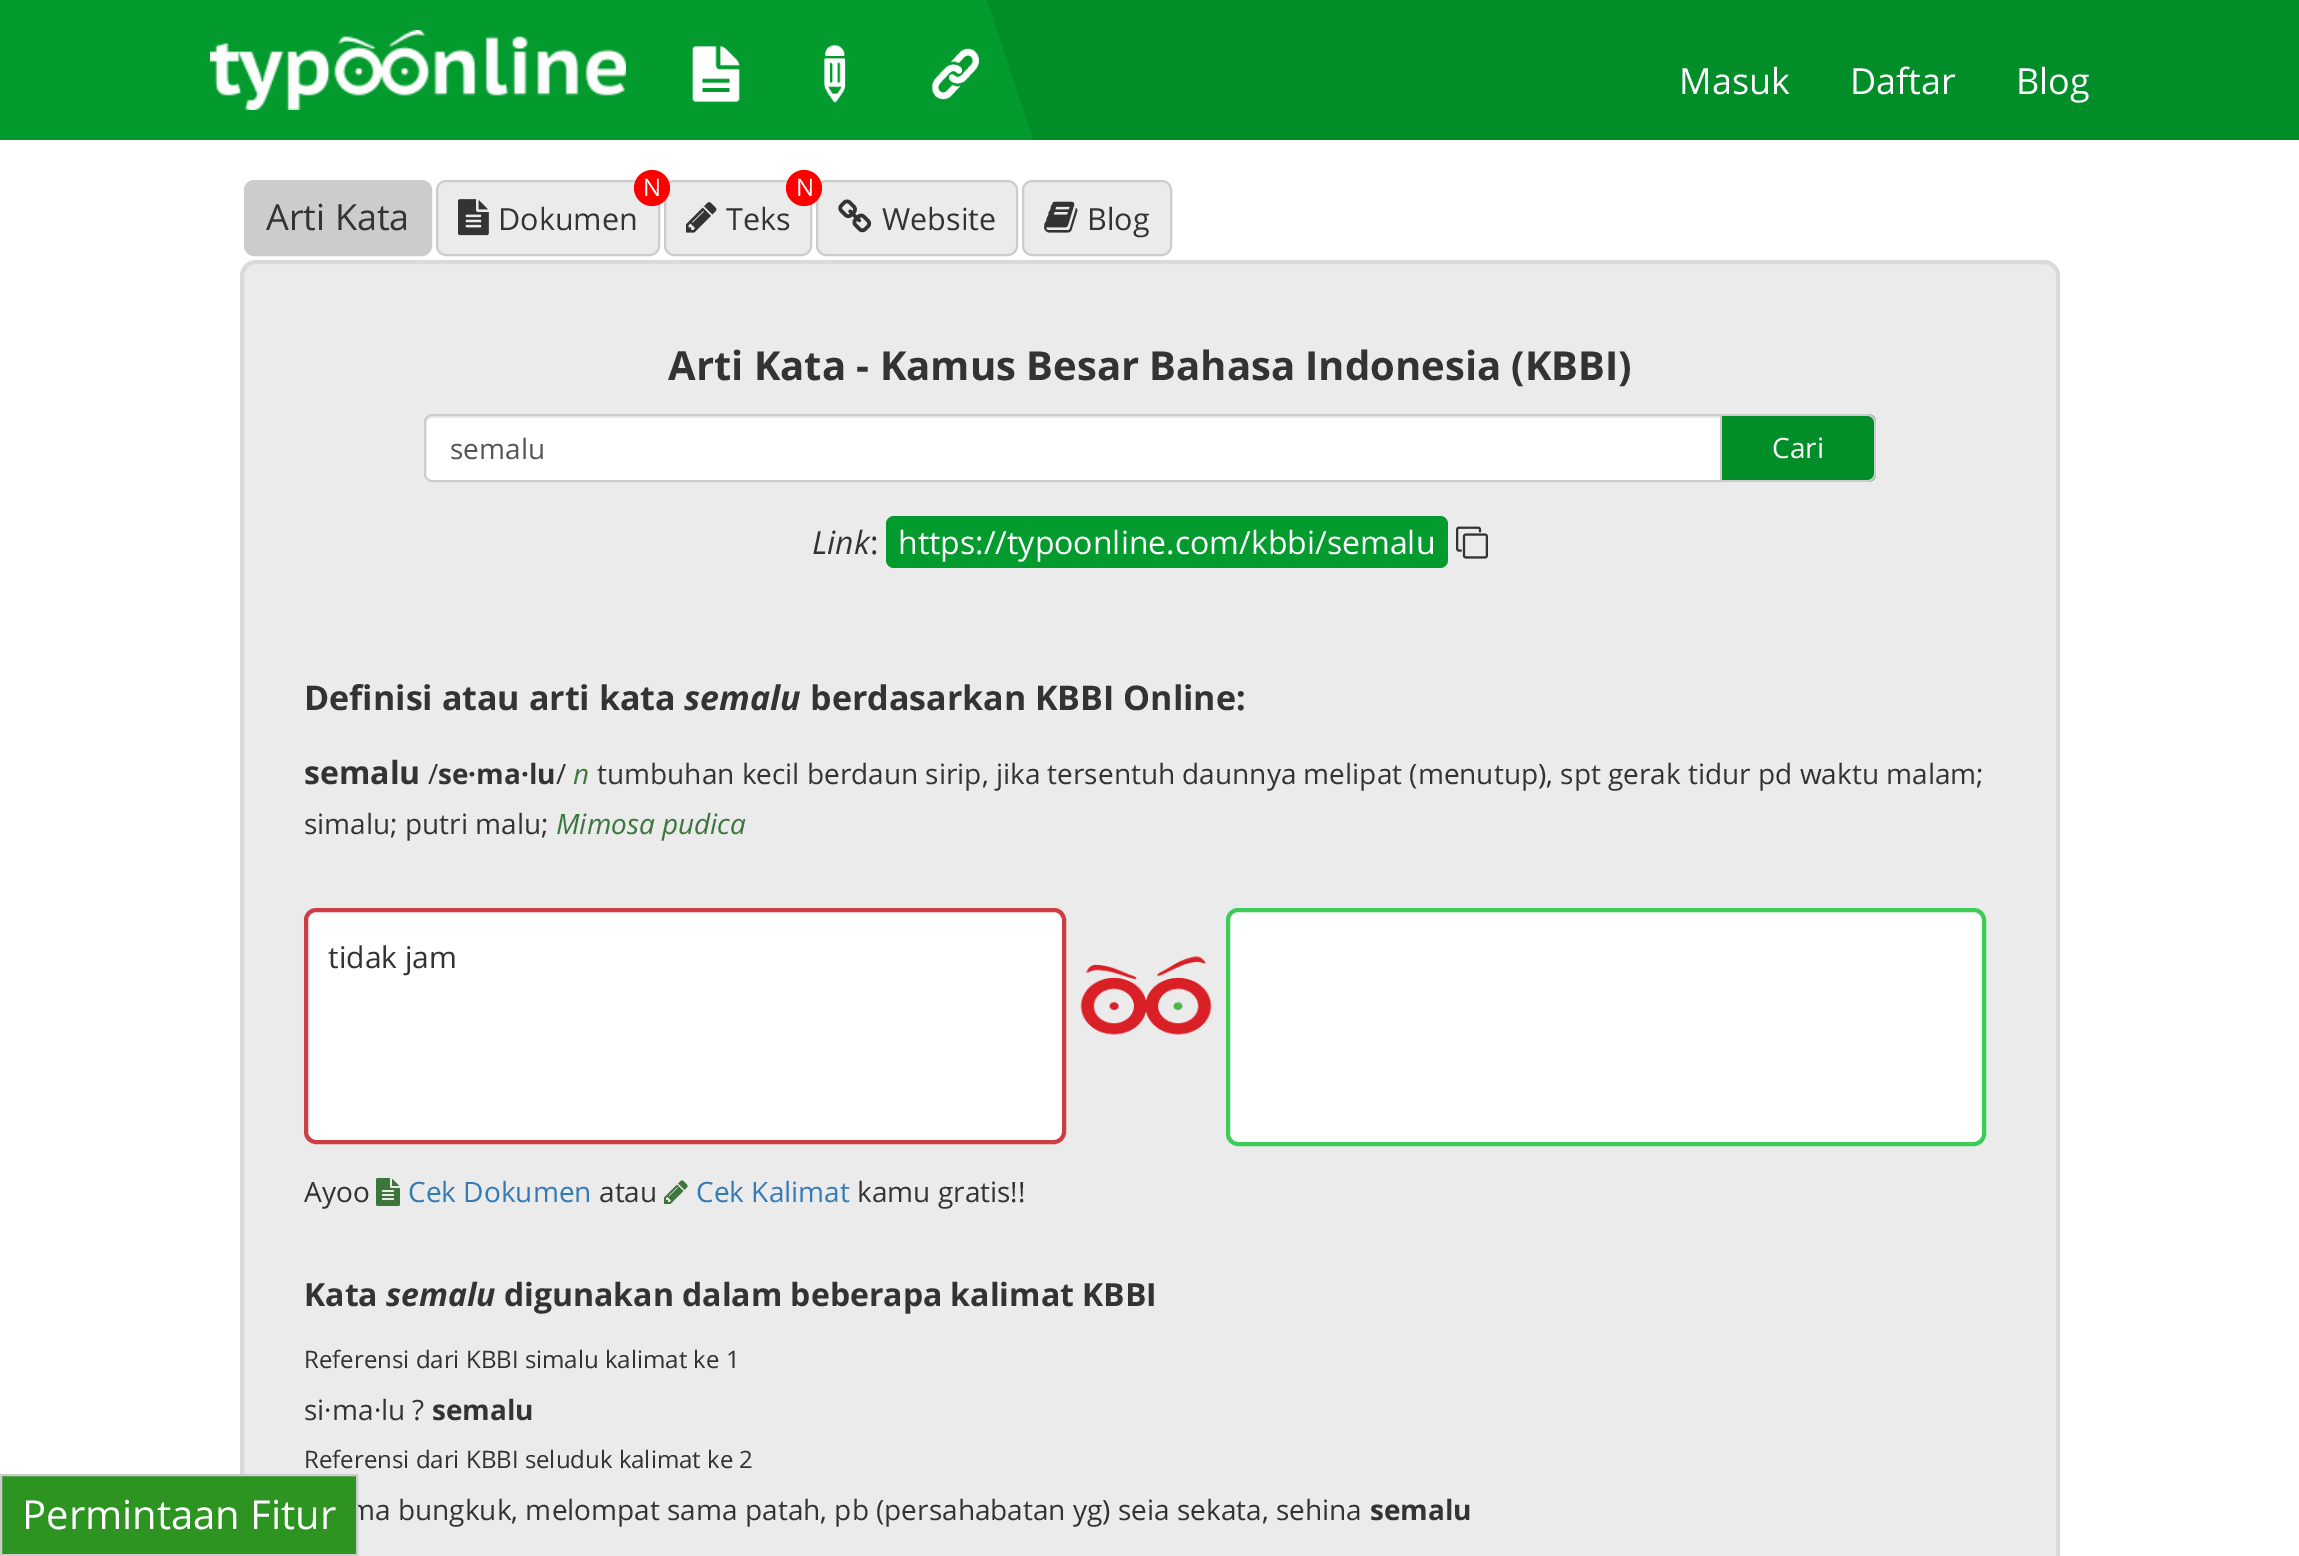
%!PS
<< /PageSize [2299 1556] /PageUsesTransparency true >> setpagedevice
/m/moveto load def
/l/rlineto load def
/c/rcurveto load def
/z/closepath load def
/f/fill load def
/s/stroke load def
/q/gsave load def
/Q_/grestore load def
/w/setlinewidth load def
/C { dup -16 bitshift 255 div exch dup -8 bitshift 255 and 255 div exch 255 and 255 div setrgbcolor } def
/F { [ exch dup neg 0 0 3 -1 roll 0 0 ] selectfont } def
/T { moveto show } def
/R { rectfill } def
/A { dup .setfillconstantalpha .setstrokeconstantalpha } def
/O { newpath 0 360 arc closepath } def
/Q { 5 dict begin { /r /h /w /y /x } { exch def } forall
  x r add y moveto x w add y 2 copy h add r arct x w add y h add x 1 index r arct
  x y h add x y r arct x y 2 copy exch w add exch r arct closepath end } def
/I { 5 dict begin { /h /w /y /x /name } { exch def } forall
  gsave x y translate w h scale
  w h 8 [w 0 0 h 0 0] name (r) file false 3 colorimage grestore end } def
0 .pushpdf14devicefilter
0 1556 translate 1 -1 scale
4 setmiterlimit
16#FFFFFF C
0 0 2299 1556 R
16#018E28 C
987 0 1312 140 R
16#039B2E C
-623 0 m 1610 0 l 46 140 l -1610 0 l z f
(1.rgb) 210 30 416 80 I
(2.rgb) 692 46 48 56 I
(3.rgb) 824 44 22 59 I
(4.rgb) 932 48 47 52 I
/OpenSans-Regular 36 F
16#FFFFFF C
(Masuk) 1679 94 T
(Daftar) 1850 94 T
(Blog) 2016 94 T
16#ECEBEB C
240 260 1820 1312 16 Q f
0.07 A
16#000000 C
4 w
242 262 1816 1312 14 Q s
/OpenSans-Regular 28 F
1 A
16#333333 C
(ma bungkuk, melompat sama patah, pb \(persahabatan yg\) seia sekata, sehina) 349 1520 T
16#2E9421 C
1 1475 m 356 0 l 0 80 l -356 0 l z q f Q_
16#CCCCCC C
2 w
s
/OpenSans-Regular 40 F
16#FFFFFF C
(Permintaan Fitur) 22 1529 T
16#CCCCCC C
245 181 186 74 9 Q q f Q_
s
/OpenSans-Regular 36 F
16#333333 C
(Arti Kata) 266 230 T
16#ECEBEB C
437 181 222 74 9 Q q f Q_
16#CCCCCC C
s
16#ECEBEB C
665 181 146 74 9 Q q f Q_
16#CCCCCC C
s
16#FF0000 C
652 188 18 O f
/OpenSans-Regular 24 F
16#FFFFFF C
(N) 643 196 T
(5.rgb) 458 199 31 37 I
/OpenSans-Regular 30.5 F
16#333333 C
(Dokumen) 498 230 T
16#ECEBEB C
817 181 200 74 9 Q q f Q_
16#CCCCCC C
s
16#FF0000 C
804 188 18 O f
/OpenSans-Regular 24 F
16#FFFFFF C
(N) 796 196 T
(6.rgb) 686 202 31 31 I
/OpenSans-Regular 30.5 F
16#333333 C
(Teks) 726 230 T
(7.rgb) 838 199 34 34 I
(Website) 882 230 T
16#ECEBEB C
1023 181 148 74 9 Q q f Q_
16#CCCCCC C
s
(8.rgb) 1044 201 34 32 I
16#333333 C
(Blog) 1087 230 T
/OpenSans-Bold 40 F
(Arti Kata - Kamus Besar Bahasa Indonesia \(KBBI\)) 668 380 T
16#FFFFFF C
432 414 m 1290 0 l 0 68 l -1290 0 l -4.5 0 -8 -3.5 -8 -8 c 0 -52 l 0 -4.5 3.5 -8 8 -8 c z f
16#ECECEC C
432 418 m 1288 0 l 0 -2 l -1288 0 l -3 0 -6 3 -6 6 c 0 2 l 0 -3 3 -6 6 -6 c z f
16#CCCCCC C
432 415 m 1289 0 l 0 66 l -1289 0 l -4 0 -7 -3 -7 -7 c 0 -52 l 0 -4 3 -7 7 -7 c z s
/OpenSans-Regular 28 F
16#555555 C
(semalu) 450 459 T
16#018E28 C
1722 414 m 146 0 l 4.5 0 8 3.5 8 8 c 0 52 l 0 4.5 -3.5 8 -8 8 c -146 0 l z f
16#CCCCCC C
1722 414 m 146 0 l 4 0 8 4 8 8 c 0 52 l 0 4 -4 8 -8 8 c -146 0 l z 1722 416 m 146 0 l 3 0 6 3 6 6 c 0 52 l 0 3 -3 6 -6 6 c -146 0 l z eofill
16#FFFFFF C
(Cari) 1772 458 T
/OpenSans-Italic 32 F
16#333333 C
(Link) 812 554 T
/OpenSans-Regular 32 F
(:) 870 554 T
16#039B2E C
886 516 562 52 8 Q f
16#FFFFFF C
(https://typoonline.com/kbbi/semalu) 898 554 T
(9.rgb) 1456 526 32 33 I
/OpenSans-Bold 34 F
16#333333 C
(Definisi atau arti kata) 304 710 T
/OpenSans-BoldItalic 34 F
(semalu) 684 710 T
/OpenSans-Bold 34 F
(berdasarkan KBBI Online:) 810 710 T
/OpenSans-Bold 32 F
(semalu) 304 784 T
/OpenSans-Regular 28 F
(/) 428 784 T
/OpenSans-Bold 28 F
(se·ma·lu) 438 784 T
/OpenSans-Regular 28 F
(/) 556 784 T
/OpenSans-Italic 28 F
16#3C763D C
(n) 573 784 T
/OpenSans-Regular 28 F
16#333333 C
(tumbuhan kecil berdaun sirip, jika tersentuh daunnya melipat \(menutup\), spt gerak tidur pd waktu malam;) 597 784 T
(simalu; putri malu;) 304 834 T
/OpenSans-Italic 28 F
16#3C763D C
(Mimosa pudica) 556 834 T
16#FFFFFF C
306 910 758 232 10 Q q f Q_
16#CC3D44 C
4 w
s
/OpenSans-Regular 30 F
16#333333 C
(tidak jam) 328 968 T
(10.rgb) 1080 956 132 79 I
16#FFFFFF C
1228 910 756 234 10 Q q f Q_
16#3DCC57 C
s
/OpenSans-Regular 28 F
16#333333 C
(Ayoo) 304 1202 T
(11.rgb) 376 1178 24 28 I
16#337AB7 C
(Cek Dokumen) 408 1202 T
16#333333 C
(atau) 599 1202 T
(12.rgb) 664 1180 24 24 I
16#337AB7 C
(Cek Kalimat) 696 1202 T
16#333333 C
(kamu gratis!!) 857 1202 T
/OpenSans-Bold 32 F
(Kata) 304 1306 T
/OpenSans-BoldItalic 32 F
(semalu) 386 1306 T
/OpenSans-Bold 32 F
(digunakan dalam beberapa kalimat KBBI) 504 1306 T
/OpenSans-Regular 24 F
(Referensi dari KBBI simalu kalimat ke 1) 304 1368 T
/OpenSans-Regular 28 F
(si·ma·lu ?) 304 1420 T
/OpenSans-Bold 28 F
(semalu) 432 1420 T
/OpenSans-Regular 24 F
(Referensi dari KBBI seluduk kalimat ke 2) 304 1468 T
/OpenSans-Bold 28 F
(semalu) 1370 1520 T
.poppdf14devicefilter showpage
